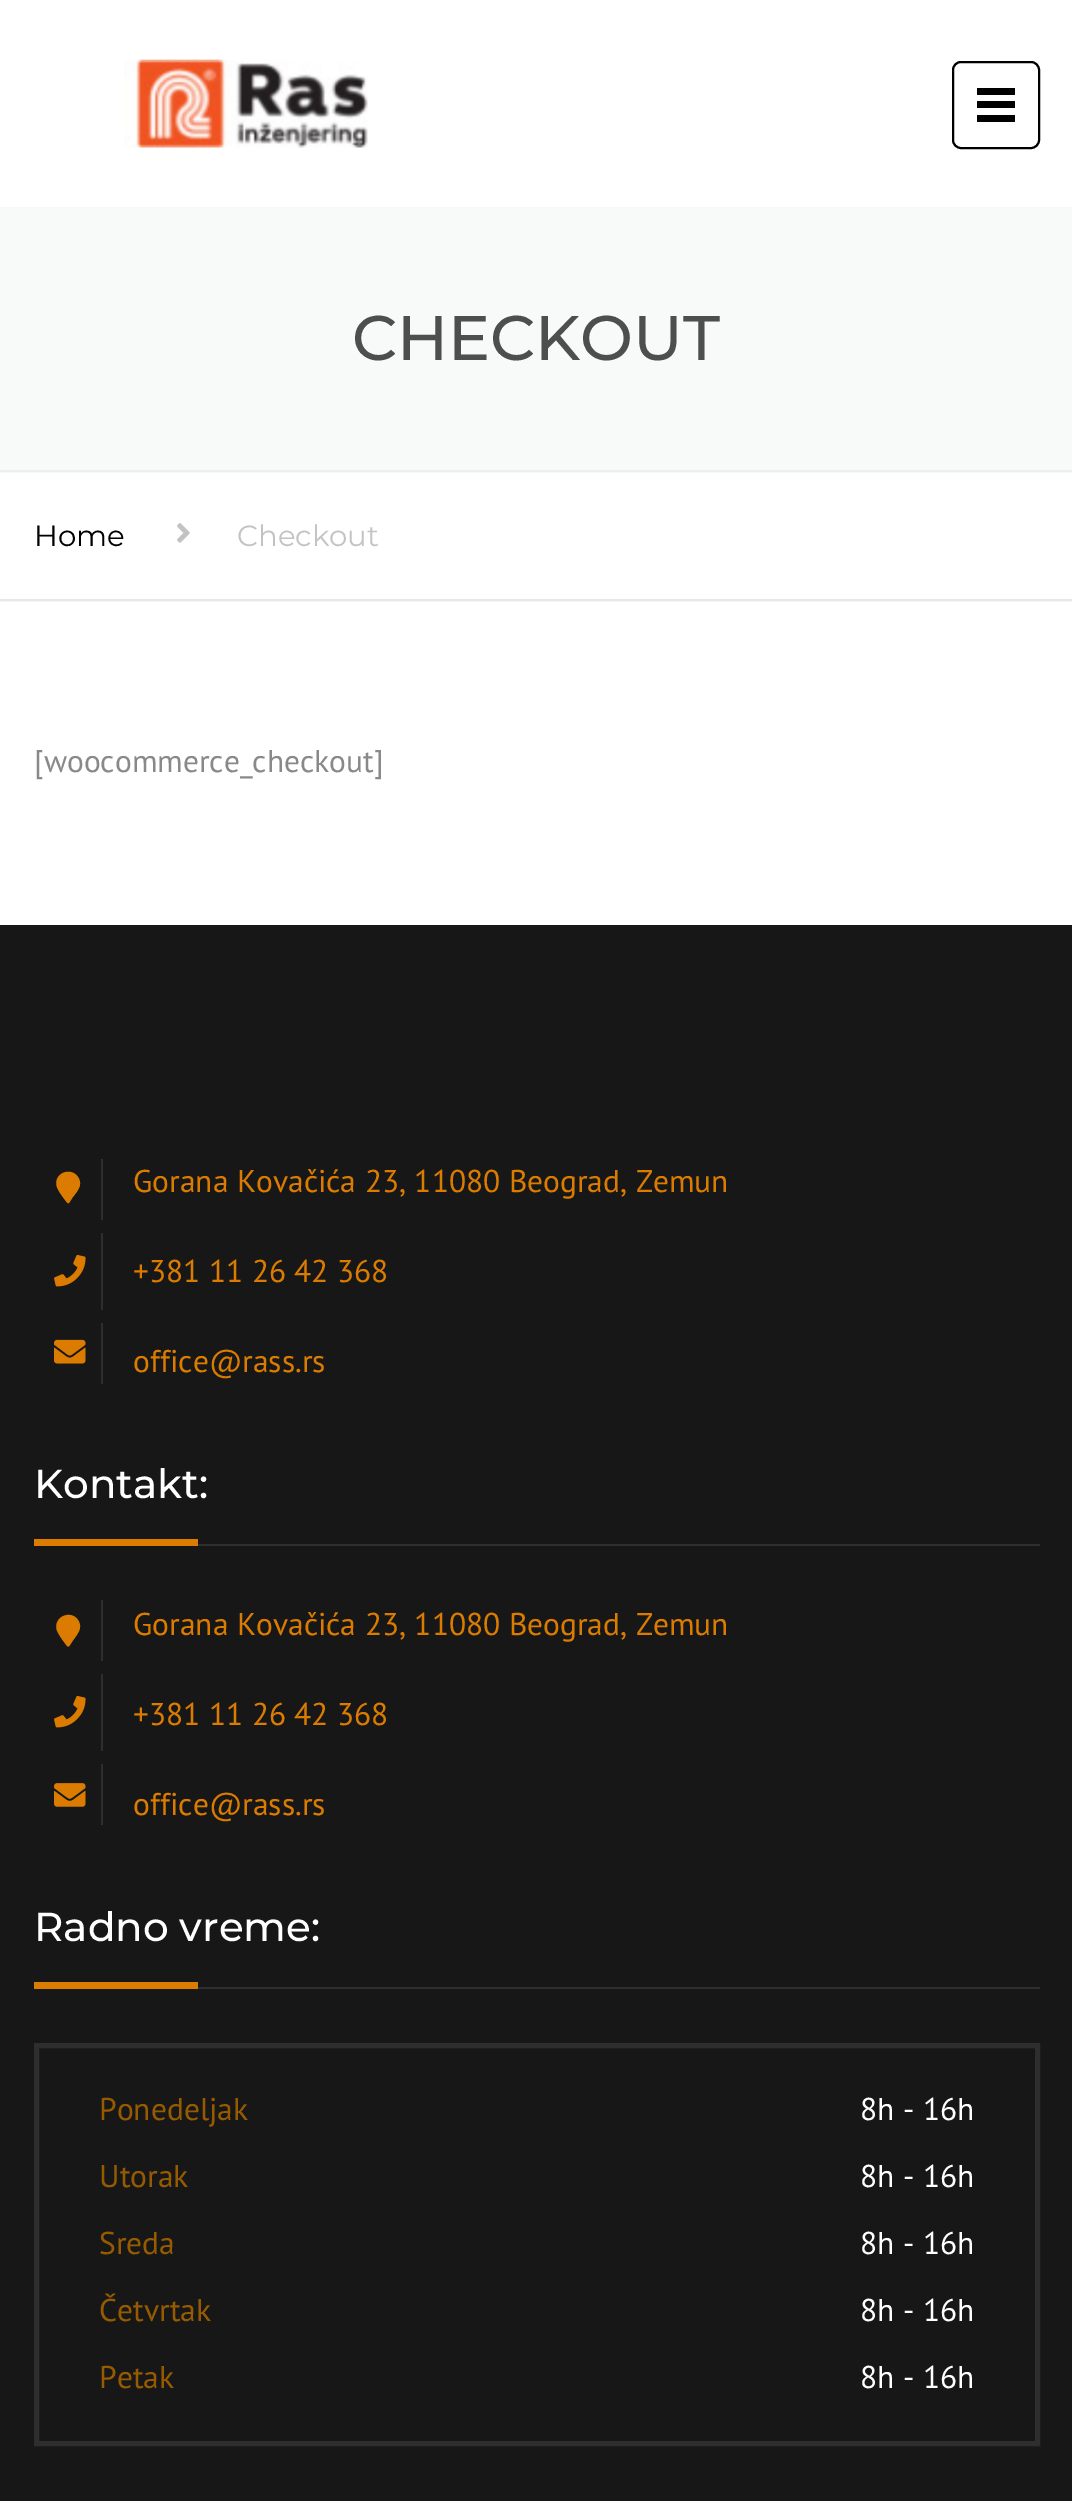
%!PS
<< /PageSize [1072 2501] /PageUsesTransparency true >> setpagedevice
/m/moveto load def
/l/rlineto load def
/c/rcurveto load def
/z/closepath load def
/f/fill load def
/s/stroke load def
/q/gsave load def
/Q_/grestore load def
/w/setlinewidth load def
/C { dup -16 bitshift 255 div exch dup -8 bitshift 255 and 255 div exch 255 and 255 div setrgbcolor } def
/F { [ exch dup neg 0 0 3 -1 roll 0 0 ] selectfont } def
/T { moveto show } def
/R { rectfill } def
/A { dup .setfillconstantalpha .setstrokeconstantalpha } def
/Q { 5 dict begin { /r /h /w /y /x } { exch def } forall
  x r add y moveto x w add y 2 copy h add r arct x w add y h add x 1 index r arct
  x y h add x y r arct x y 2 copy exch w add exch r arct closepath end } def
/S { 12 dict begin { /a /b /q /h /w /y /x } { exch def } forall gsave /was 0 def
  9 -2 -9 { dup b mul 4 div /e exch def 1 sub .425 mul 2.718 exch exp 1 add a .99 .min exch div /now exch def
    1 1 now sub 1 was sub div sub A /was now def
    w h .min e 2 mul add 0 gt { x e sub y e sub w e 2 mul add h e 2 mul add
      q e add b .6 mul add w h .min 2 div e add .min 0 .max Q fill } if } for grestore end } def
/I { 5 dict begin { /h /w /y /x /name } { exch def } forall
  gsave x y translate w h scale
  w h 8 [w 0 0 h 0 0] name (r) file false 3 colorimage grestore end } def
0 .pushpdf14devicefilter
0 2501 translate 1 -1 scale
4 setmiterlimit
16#171717 C
0 0 1072 2501 R
16#FFFFFF C
0 0 1072 207 R
(1.rgb) 124 59 244 89 I
16#000000 C
2 w
953 62 86 86 8 Q s
977 88 38 7 R
977 101 38 7 R
977 115 38 7 R
16#FFFFFF C
0 473 1072 452 R
q
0 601 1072 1 rectclip
16#000000 C
0 473 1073 128 0 1 .14 S
Q_
16#F8F9F9 C
0 207 1072 266 R
16#EEEEEE C
0 470 1072 2 R
/Montserrat-Medium 63 F
16#4E4E4E C
(CHECKOUT) 352 360 T
16#E7E7E7 C
0 599 1072 2 R
/Montserrat-Regular 29.25 F
16#000000 C
(Home) 34 546 T
(2.rgb) 177 523 13 20 I
16#C3C3C3 C
(Checkout) 237 546 T
/PTSans-Regular 31.5 F
16#898989 C
([woocommerce_checkout]) 34 772 T
16#DB7C00 C
67 1202.5 m -3 -4 -9.5 -12 -10.5 -17 c -2.5 -12.5 14.5 -19 21.5 -8.5 c 5.5 8 -1 14.5 -5.5 20.5 c -3.5 5.5 l -1 .5 -1.5 0 -2 -.5 c z f
16#2E2E2E C
101 1159 2 61 R
16#DB7C00 C
(Gorana Kovačića 23, 11080 Beograd, Zemun) 133 1192 T
(3.rgb) 54 1254 32 33 I
16#2E2E2E C
101 1233 2 77 R
16#DB7C00 C
(+381 11 26 42 368) 133 1282 T
(4.rgb) 54 1339 32 25 I
16#2E2E2E C
101 1323 2 61 R
16#DB7C00 C
(office@rass.rs) 133 1372 T
16#2E2E2E C
198 1544 842 2 R
/Montserrat-Medium 40.5 F
16#FFFFFF C
(Kontakt:) 34 1498 T
16#DB7C00 C
34 1539 164 7 R
67 1646 m -3 -4 -9.5 -12.5 -10.5 -17 c -2.5 -12.5 14.5 -19.5 21.5 -9 c 5.5 8 -1 14.5 -5.5 21 c -3.5 5.5 l -1 0 -1.5 0 -2 -.5 c z f
16#2E2E2E C
101 1600 2 61 R
/PTSans-Regular 31.5 F
16#DB7C00 C
(Gorana Kovačića 23, 11080 Beograd, Zemun) 133 1635 T
(3.rgb) 54 1695 32 33 I
16#2E2E2E C
101 1674 2 77 R
16#DB7C00 C
(+381 11 26 42 368) 133 1725 T
(5.rgb) 54 1783 32 24 I
16#2E2E2E C
101 1764 2 61 R
16#DB7C00 C
(office@rass.rs) 133 1815 T
16#2E2E2E C
198 1987 842 2 R
/Montserrat-Medium 40.5 F
16#FFFFFF C
(Radno vreme:) 34 1941 T
16#DB7C00 C
34 1982 164 7 R
16#2E2E2E C
5 w
36.5 2045.5 1001 398 rectstroke
/PTSans-Regular 31.5 F
16#965A00 C
(Ponedeljak) 99 2120 T
16#FFFFFF C
(8h - 16h) 860 2120 T
16#965A00 C
(Utorak) 99 2187 T
16#FFFFFF C
(8h - 16h) 860 2187 T
16#965A00 C
(Sreda) 99 2254 T
16#FFFFFF C
(8h - 16h) 860 2254 T
16#965A00 C
(Četvrtak) 99 2321 T
16#FFFFFF C
(8h - 16h) 860 2321 T
16#965A00 C
(Petak) 99 2388 T
16#FFFFFF C
(8h - 16h) 860 2388 T
.poppdf14devicefilter showpage
